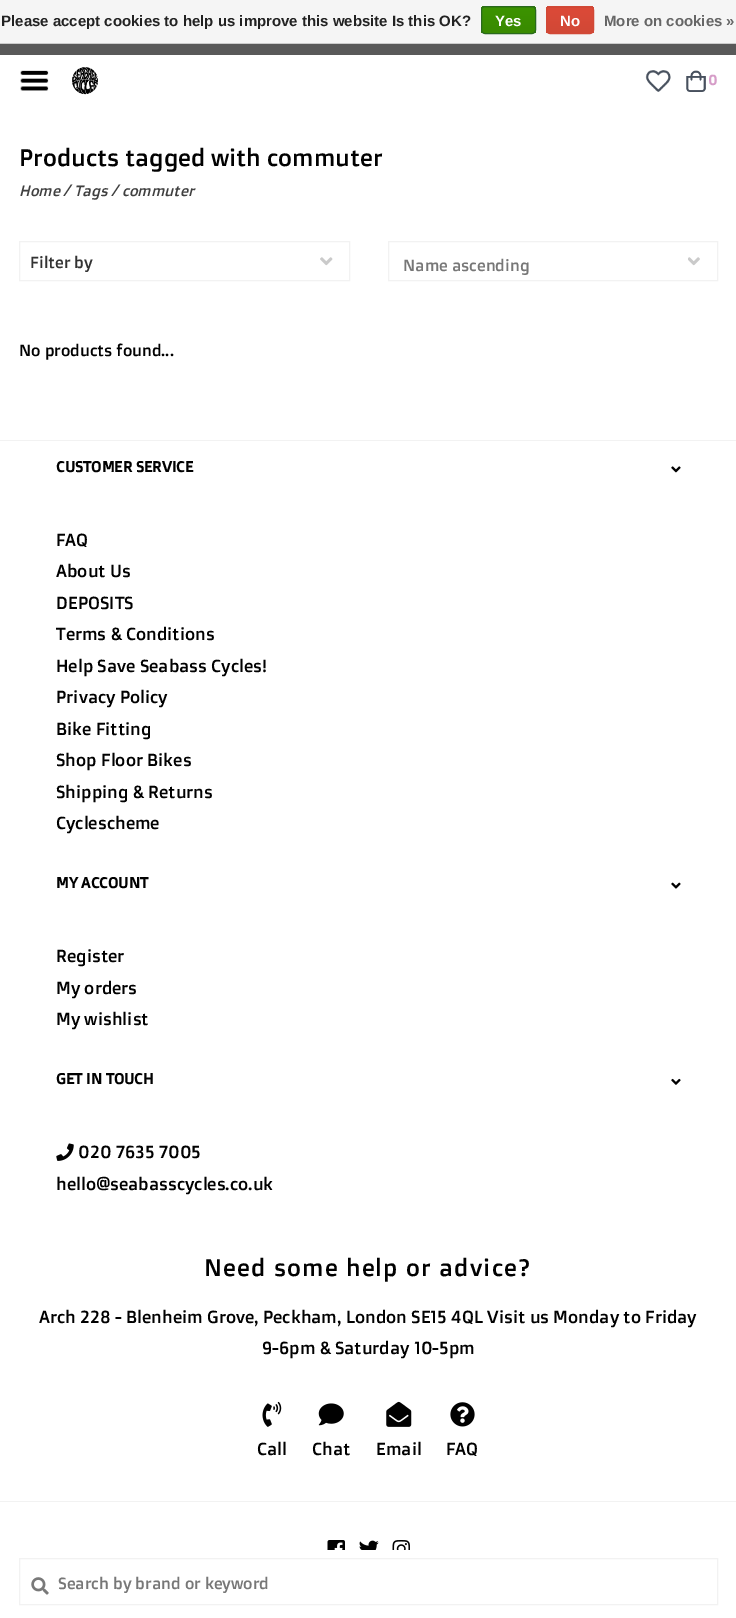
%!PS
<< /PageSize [736 1618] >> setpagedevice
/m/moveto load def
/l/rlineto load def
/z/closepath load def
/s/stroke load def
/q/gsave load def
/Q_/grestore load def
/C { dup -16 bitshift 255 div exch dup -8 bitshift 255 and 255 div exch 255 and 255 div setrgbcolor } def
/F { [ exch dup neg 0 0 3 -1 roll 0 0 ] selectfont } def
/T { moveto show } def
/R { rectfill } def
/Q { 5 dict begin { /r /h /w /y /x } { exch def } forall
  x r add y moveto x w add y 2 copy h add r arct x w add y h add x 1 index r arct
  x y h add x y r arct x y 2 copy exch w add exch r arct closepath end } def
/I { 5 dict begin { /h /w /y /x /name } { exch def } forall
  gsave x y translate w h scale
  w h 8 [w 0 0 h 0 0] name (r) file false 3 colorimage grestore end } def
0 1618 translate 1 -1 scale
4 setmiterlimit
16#FFFFFF C
0 0 736 1618 R
16#F5F5F5 C
0 0 736 43 R
16#CCCCCC C
0 43 736 1 R
/LiberationSans-Bold 15 F
16#222222 C
(Please accept cookies to help us improve this website Is this OK?) 1 26 T
q
481 6 55 28 4 Q clip newpath
q 481 6 m 55 0 l 0 2 l -55 0 l z clip newpath
<< /ShadingType 2 /ColorSpace /DeviceRGB /Coords [509 -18 509 7.5] /Extend [true true] /Function << /FunctionType 2 /Domain [0 1] /C0 [.235 .576 0] /C1 [.224 .541 0] /N 1 >> >> shfill Q_
q 481 8 m 55 0 l 0 25 l -55 0 l z clip newpath
<< /ShadingType 2 /ColorSpace /DeviceRGB /Coords [509 7.5 509 33] /Extend [true true] /Function << /FunctionType 2 /Domain [0 1] /C0 [.235 .576 0] /C1 [.224 .541 0] /N 1 >> >> shfill Q_
Q_
16#29691D C
481.5 6.5 54 27 3.5 Q s
16#FFFFFF C
(Yes) 495 26 T
q
546 6 48 28 4 Q clip newpath
q 546 6 m 48 0 l 0 2 l -48 0 l z clip newpath
<< /ShadingType 2 /ColorSpace /DeviceRGB /Coords [570 -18 570 7.5] /Extend [true true] /Function << /FunctionType 2 /Domain [0 1] /C0 [.863 .29 .22] /C1 [.82 .282 .212] /N 1 >> >> shfill Q_
q 546 8 m 48 0 l 0 25 l -48 0 l z clip newpath
<< /ShadingType 2 /ColorSpace /DeviceRGB /Coords [570 7.5 570 33] /Extend [true true] /Function << /FunctionType 2 /Domain [0 1] /C0 [.863 .29 .22] /C1 [.82 .282 .212] /N 1 >> >> shfill Q_
Q_
16#D14836 C
546.5 6.5 47 27 3.5 Q s
16#FFFFFF C
(No) 560 26 T
16#666666 C
(More on cookies ») 604 26 T
16#595959 C
0 44 736 11 R
(1.rgb) 20 70 29 21 I
(2.rgb) 72 67 26 28 I
(3.rgb) 645 70 26 22 I
(4.rgb) 686 70 20 22 I
/DoppioOne-Bold 14 F
16#D69DC8 C
(0) 708 85 T
/DoppioOne-Regular 24 F
16#010101 C
(Products tagged with commuter) 19 166 T
/DoppioOne-Italic 15 F
16#404040 C
(Home / Tags / commuter) 19 196 T
(5.rgb) 320 257 13 9 I
16#F2F2F2 C
19.5 241.5 330 39 rectstroke
/DoppioOne-Regular 16.25 F
16#333333 C
(Filter by) 30 268 T
(6.rgb) 688 257 12 9 I
16#F2F2F2 C
388.5 241.5 329 39 rectstroke
16#777777 C
(Name ascending) 403 271 T
16#010101 C
(No products found...) 19 356 T
16#F2F2F2 C
0 440 736 1 R
/DoppioOne-Bold 15 F
16#010101 C
(CUSTOMER SERVICE) 56 472 T
(7.rgb) 671 466 10 7 I
/DoppioOne-Regular 17.5 F
(FAQ) 56 546 T
(About Us) 56 577 T
(DEPOSITS) 56 609 T
(Terms & Conditions) 56 640 T
(Help Save Seabass Cycles!) 56 672 T
(Privacy Policy) 56 703 T
(Bike Fitting) 56 735 T
(Shop Floor Bikes) 56 766 T
(Shipping & Returns) 56 798 T
(Cyclescheme) 56 829 T
/DoppioOne-Bold 15 F
(MY ACCOUNT) 56 888 T
(8.rgb) 671 882 10 7 I
/DoppioOne-Regular 17.5 F
(Register) 56 962 T
(My orders) 56 994 T
(My wishlist) 56 1025 T
/DoppioOne-Bold 15 F
(GET IN TOUCH) 56 1084 T
(9.rgb) 671 1078 10 7 I
(10.rgb) 56 1143 18 18 I
/DoppioOne-Regular 17.5 F
(020 7635 7005) 78 1158 T
(hello@seabasscycles.co.uk) 56 1190 T
/DoppioOne-Regular 24 F
204 1276 m 1.2 0 (Need some help or advice?) ashow
/DoppioOne-Regular 17.5 F
(Arch 228 - Blenheim Grove, Peckham, London SE15 4QL Visit us Monday to Friday) 39 1323 T
(9-6pm & Saturday 10-5pm) 262 1354 T
(11.rgb) 262 1401 20 26 I
(Call) 257 1455 T
(12.rgb) 318 1403 26 23 I
(Chat) 312 1455 T
(13.rgb) 386 1401 26 26 I
(Email) 376 1455 T
(14.rgb) 450 1402 25 25 I
(FAQ) 446 1455 T
16#F2F2F2 C
0 1501 736 1 R
(15.rgb) 327 1540 18 10 I
(16.rgb) 359 1540 20 10 I
(17.rgb) 392 1540 18 10 I
19.5 1558.5 698 46 rectstroke
(18.rgb) 31 1577 18 18 I
/DoppioOne-Regular 16.25 F
16#777777 C
(Search by brand or keyword) 58 1589 T
showpage
